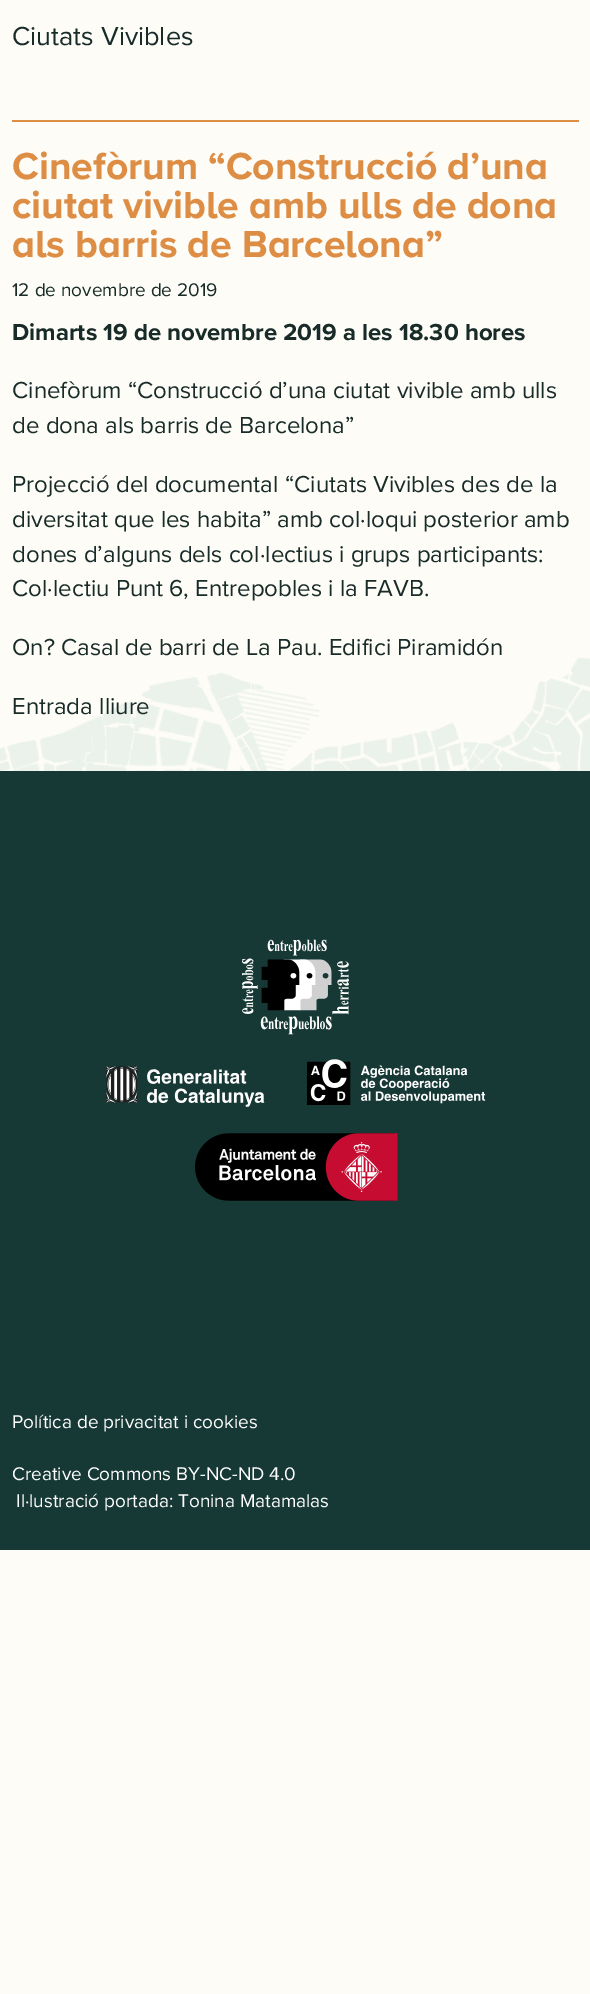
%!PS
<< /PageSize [590 1994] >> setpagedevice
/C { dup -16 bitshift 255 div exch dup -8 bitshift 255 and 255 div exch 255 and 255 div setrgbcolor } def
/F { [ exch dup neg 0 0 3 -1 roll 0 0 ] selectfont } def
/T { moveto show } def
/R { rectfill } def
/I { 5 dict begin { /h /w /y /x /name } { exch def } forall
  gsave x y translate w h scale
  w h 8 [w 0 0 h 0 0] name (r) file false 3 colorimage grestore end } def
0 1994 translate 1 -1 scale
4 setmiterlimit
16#FDFCF6 C
0 0 590 1994 R
/Proximanova-Regular 27 F
16#182B29 C
(Ciutats Vivibles) 12 45 T
(1.rgb) 0 657 590 114 I
16#DD8D44 C
12 120 567 2 R
/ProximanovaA-Bold 39 F
(Cinefòrum “Construcció d’una) 12 179 T
(ciutat vivible amb ulls de dona) 12 218 T
(als barris de Barcelona”) 12 257 T
/Proximanova-Regular 19 F
16#182B29 C
(12 de novembre de 2019) 12 296 T
/Proximanova-Bold 24 F
(Dimarts 19 de novembre 2019 a les 18.30 hores) 12 340 T
/Proximanova-Regular 24 F
(Cinefòrum “Construcció d’una ciutat vivible amb ulls) 12 398 T
(de dona als barris de Barcelona”) 12 433 T
(Projecció del documental “Ciutats Vivibles des de la) 12 492 T
(diversitat que les habita” amb col·loqui posterior amb) 12 527 T
(dones d’alguns dels col·lectius i grups participants:) 12 562 T
(Col·lectiu Punt 6, Entrepobles i la FAVB.) 12 596 T
(On? Casal de barri de La Pau. Edifici Piramidón) 12 655 T
(Entrada lliure) 12 714 T
16#173935 C
0 771 590 779 R
(2.rgb) 242 939 107 96 I
(3.rgb) 106 1059 380 48 I
(4.rgb) 195 1133 203 68 I
/Proximanova-Regular 19 F
16#FFFFFF C
(Política de privacitat i cookies) 12 1428 T
(Creative Commons BY-NC-ND 4.0) 12 1480 T
(Il·lustració portada: Tonina Matamalas) 16 1507 T
showpage
